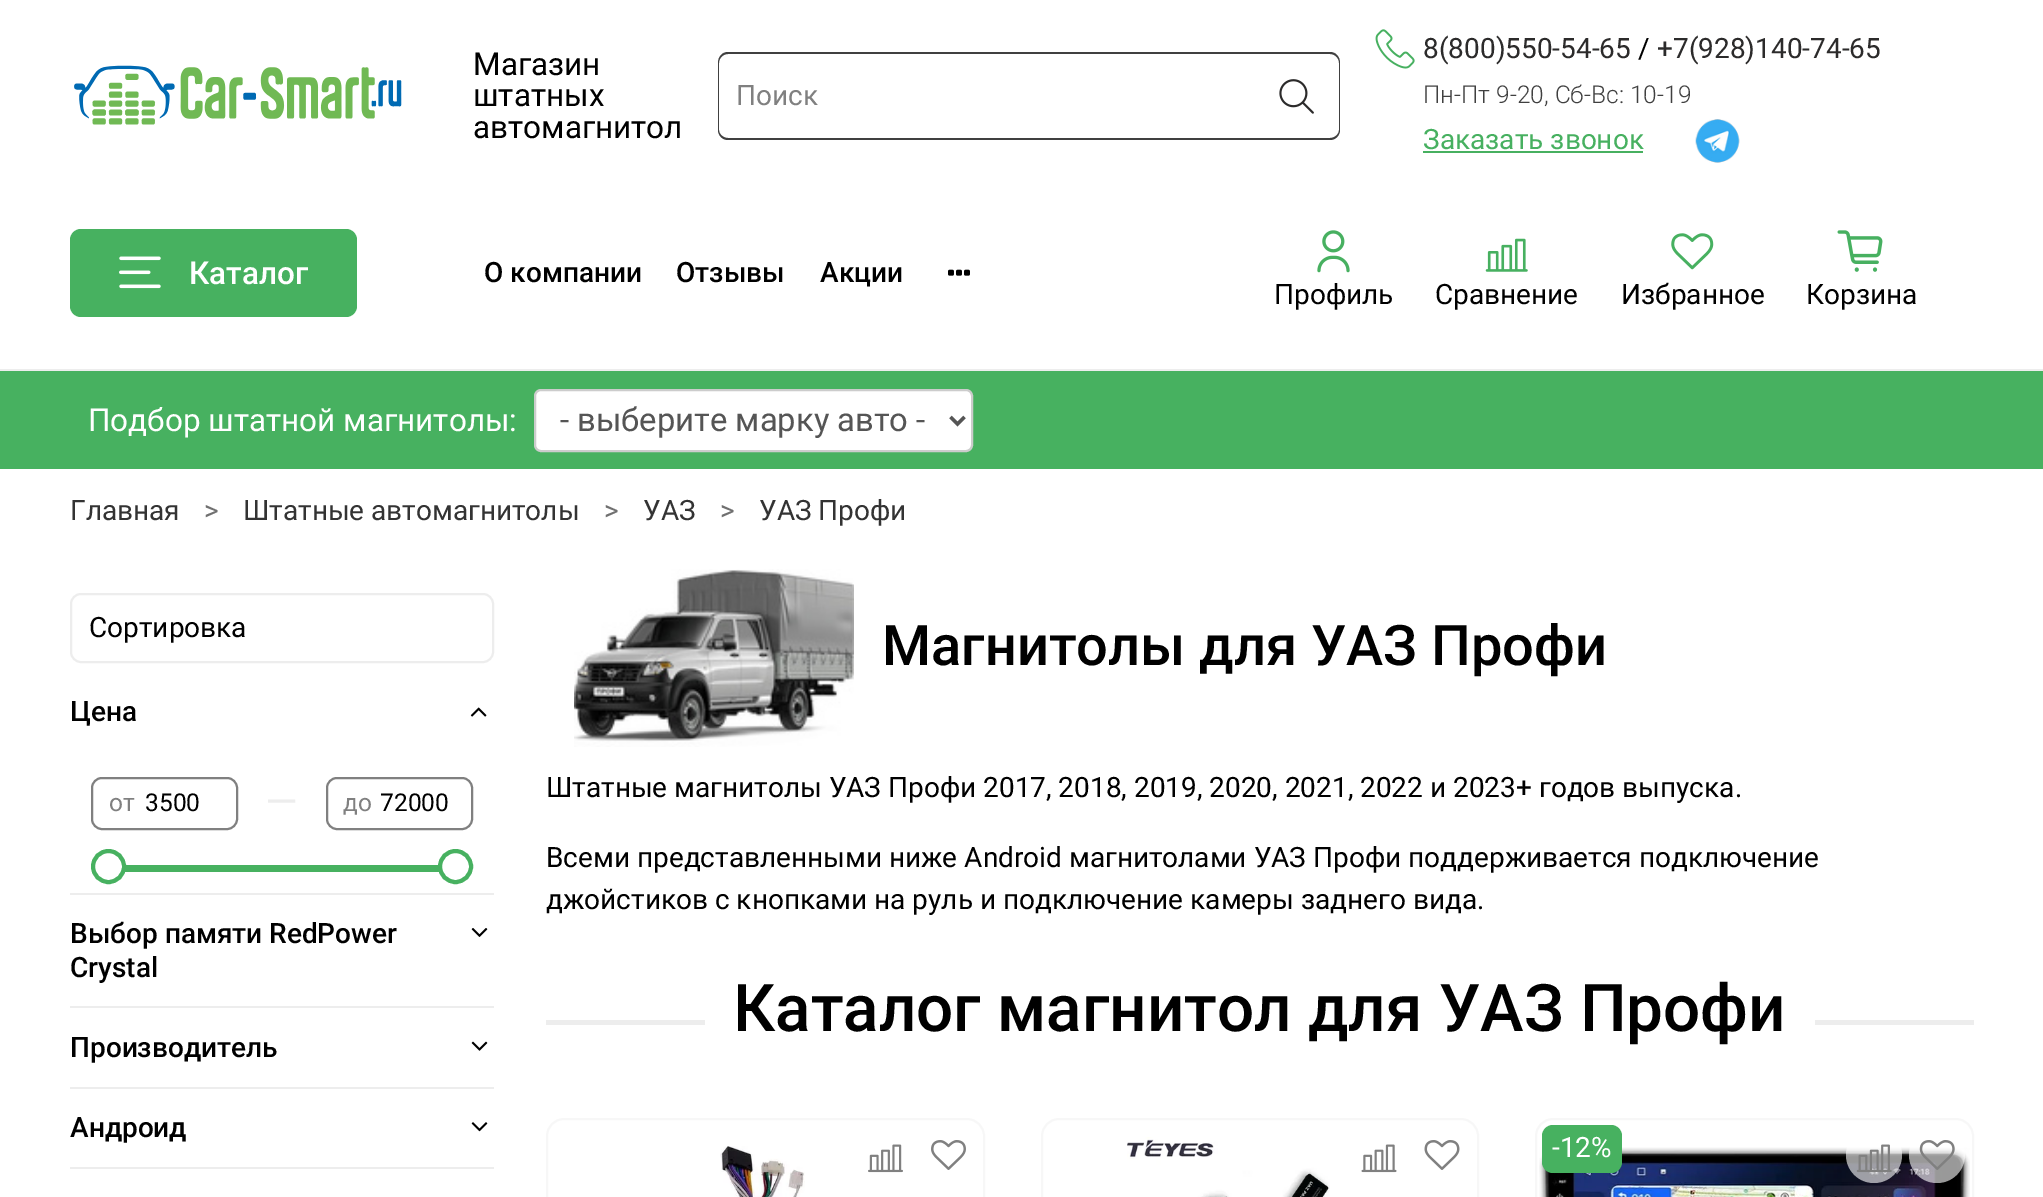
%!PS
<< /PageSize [2043 1197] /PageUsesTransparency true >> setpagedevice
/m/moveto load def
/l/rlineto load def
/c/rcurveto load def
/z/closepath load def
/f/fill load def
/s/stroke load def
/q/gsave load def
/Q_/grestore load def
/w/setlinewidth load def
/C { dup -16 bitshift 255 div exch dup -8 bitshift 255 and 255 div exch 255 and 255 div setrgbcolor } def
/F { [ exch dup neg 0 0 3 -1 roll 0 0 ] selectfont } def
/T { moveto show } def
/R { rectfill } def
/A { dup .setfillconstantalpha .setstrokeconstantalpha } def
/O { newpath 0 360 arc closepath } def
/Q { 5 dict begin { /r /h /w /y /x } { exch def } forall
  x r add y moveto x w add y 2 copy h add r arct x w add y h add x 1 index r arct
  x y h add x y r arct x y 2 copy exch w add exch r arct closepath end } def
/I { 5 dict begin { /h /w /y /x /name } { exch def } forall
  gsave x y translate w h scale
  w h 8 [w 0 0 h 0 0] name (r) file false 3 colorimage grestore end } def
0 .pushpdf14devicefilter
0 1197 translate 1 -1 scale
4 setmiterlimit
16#FFFFFF C
0 0 2043 1197 R
(1.rgb) 74 65 328 60 I
/Roboto-Regular 31.5 F
16#000000 C
(Магазин) 473 75 T
(штатных) 473 106 T
(автомагнитол) 473 138 T
16#404040 C
728 52 m 525 0 l 0 88 l -525 0 l -6 0 -10 -5 -10 -10 c 0 -67 l 0 -6 4 -11 10 -11 c z 728 54 m 525 0 l 0 84 l -525 0 l -5 0 -9 -4 -9 -8 c 0 -67 l 0 -5 4 -9 9 -9 c z eofill
/Roboto-Regular 28 F
16#808080 C
(Поиск) 736 105 T
16#404040 C
1253 52 m 77 0 l 6 0 10 5 10 11 c 0 67 l 0 5 -4 10 -10 10 c -77 0 l z 1253 54 m 77 0 l 5 0 9 4 9 9 c 0 67 l 0 4 -4 8 -9 8 c -77 0 l z eofill
(2.rgb) 1279 79 35 35 I
(3.rgb) 1375 29 40 40 I
16#2C2B2B C
(8\(800\)550-54-65) 1423 58 T
16#000000 C
(/) 1638 58 T
16#2C2B2B C
(+7\(928\)140-74-65) 1657 58 T
/Roboto-Light 24.5 F
16#404040 C
(Пн-Пт 9-20, Сб-Вс: 10-19) 1423 103 T
/Roboto-Regular 28 F
16#47B060 C
(Заказать звонок) 1423 149 T
1423 151 220 2 R
(4.rgb) 1695 119 45 44 I
16#EDEDED C
0 369 2043 2 R
16#47B160 C
70 229 287 88 11 Q f
(5.rgb) 119 256 42 33 I
/Roboto-Medium 31.5 F
16#FFFFFF C
(Каталог) 189 284 T
/Roboto-Medium 28 F
16#000000 C
(О компании) 484 282 T
(Отзывы) 676 282 T
(Акции) 820 282 T
(6.rgb) 948 269 22 7 I
(7.rgb) 1317 230 33 43 I
/Roboto-Regular 28 F
(Профиль) 1274 304 T
(8.rgb) 1485 238 43 34 I
(Сравнение) 1435 304 T
(9.rgb) 1671 233 43 37 I
(Избранное) 1621 304 T
(10.rgb) 1837 230 46 42 I
(Корзина) 1806 304 T
16#47B160 C
0 371 2043 98 R
/Roboto-Regular 31.5 F
16#FFFFFF C
(Подбор штатной магнитолы:) 88 431 T
535 390 437 61 6 Q q f Q_
16#CCCCCC C
2 w
s
16#555555 C
3.5 w
950.5 417 m 7 7 l 7 -7 l s
/Roboto-Regular 32.75 F
(- выберите марку авто -) 560 431 T
/Roboto-Regular 28 F
16#333333 C
(Главная) 70 520 T
16#707070 C
(>) 204 520 T
16#333333 C
(Штатные автомагнитолы) 243 520 T
16#707070 C
(>) 604 520 T
16#333333 C
(УАЗ) 643 520 T
16#707070 C
(>) 720 520 T
16#333333 C
(УАЗ Профи) 759 520 T
16#EDEDED C
2 w
71 594 422 68 10 Q s
16#000000 C
(Сортировка) 89 637 T
16#EDEDED C
70 893 424 2 R
/Roboto-Medium 28 F
16#000000 C
(Цена) 70 721 T
(11.rgb) 470 707 17 10 I
16#808080 C
92 778 145 51 10 Q s
/Roboto-Regular 24.5 F
(от) 109 811 T
16#000000 C
(3500) 145 811 T
/Roboto-Regular 42 F
16#EDEDED C
(—) 265 816 T
16#808080 C
327 778 145 51 10 Q s
/Roboto-Regular 24.5 F
(до) 343 811 T
16#000000 C
(72000) 380 811 T
16#47B160 C
125 865 314 7 R
16#FFFFFF C
108.5 866.5 15.5 O q f Q_
16#47B160 C
4 w
s
16#FFFFFF C
455.5 866.5 15.5 O q f Q_
16#47B160 C
s
16#EDEDED C
70 1006 424 2 R
/Roboto-Medium 28 F
16#000000 C
(Выбор памяти RedPower) 70 943 T
(Crystal) 70 977 T
(12.rgb) 471 928 17 9 I
16#EDEDED C
70 1087 424 2 R
16#000000 C
(Производитель) 70 1057 T
(13.rgb) 471 1041 17 10 I
16#EDEDED C
70 1167 424 2 R
16#000000 C
(Андроид) 70 1137 T
(14.rgb) 471 1122 17 10 I
(15.rgb) 574 569 280 178 I
/Roboto-Medium 56 F
(Магнитолы для УАЗ Профи) 882 665 T
/Roboto-Regular 28 F
(Штатные магнитолы УАЗ Профи 2017, 2018, 2019, 2020, 2021, 2022 и 2023+ годов выпуска.) 546 797 T
(Всеми представленными ниже Android магнитолами УАЗ Профи поддерживается подключение) 546 867 T
(джойстиков с кнопками на руль и подключение камеры заднего вида.) 546 909 T
16#EDEDED C
546 1020 159 5 R
/Roboto-Medium 65.6 F
16#000000 C
(Каталог магнитол для УАЗ Профи) 733 1031 T
16#EDEDED C
1815 1020 159 5 R
16#F7F7F7 C
2 w
547 1119 437 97 17 Q s
(16.rgb) 720 1146 85 51 I
(17.rgb) 868 1144 35 29 I
(18.rgb) 931 1140 35 30 I
1042 1119 436 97 17 Q s
(19.rgb) 1127 1137 203 60 I
(20.rgb) 1361 1144 36 29 I
(21.rgb) 1424 1140 36 30 I
1536 1119 437 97 17 Q s
(24.rgb) 1539 1147 431 50 I
16#47B160 C
1542 1125 80 48 11 Q f
/Roboto-Regular 28 F
16#FFFFFF C
(-12%) 1552 1157 T
0.6 A
1874 1155 28 O f
1 A
(22.rgb) 1856 1144 36 29 I
0.6 A
1937 1155 28 O f
1 A
(23.rgb) 1919 1140 36 30 I
.poppdf14devicefilter showpage
